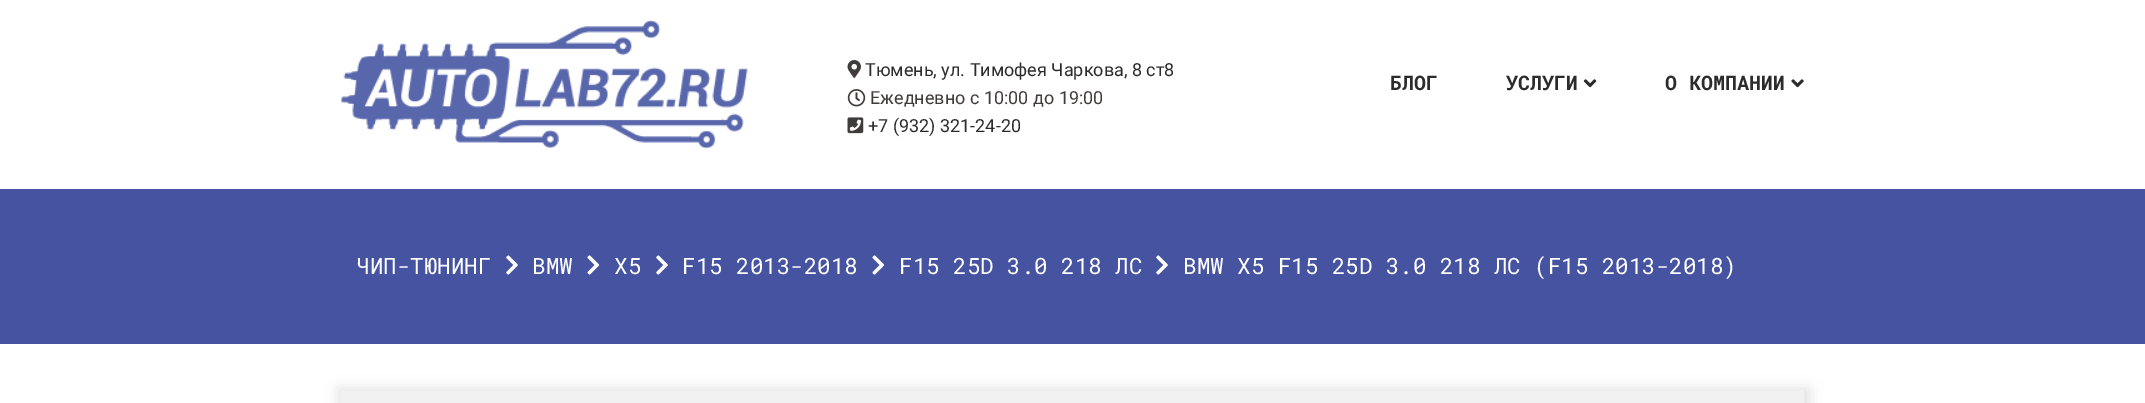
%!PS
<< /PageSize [2145 403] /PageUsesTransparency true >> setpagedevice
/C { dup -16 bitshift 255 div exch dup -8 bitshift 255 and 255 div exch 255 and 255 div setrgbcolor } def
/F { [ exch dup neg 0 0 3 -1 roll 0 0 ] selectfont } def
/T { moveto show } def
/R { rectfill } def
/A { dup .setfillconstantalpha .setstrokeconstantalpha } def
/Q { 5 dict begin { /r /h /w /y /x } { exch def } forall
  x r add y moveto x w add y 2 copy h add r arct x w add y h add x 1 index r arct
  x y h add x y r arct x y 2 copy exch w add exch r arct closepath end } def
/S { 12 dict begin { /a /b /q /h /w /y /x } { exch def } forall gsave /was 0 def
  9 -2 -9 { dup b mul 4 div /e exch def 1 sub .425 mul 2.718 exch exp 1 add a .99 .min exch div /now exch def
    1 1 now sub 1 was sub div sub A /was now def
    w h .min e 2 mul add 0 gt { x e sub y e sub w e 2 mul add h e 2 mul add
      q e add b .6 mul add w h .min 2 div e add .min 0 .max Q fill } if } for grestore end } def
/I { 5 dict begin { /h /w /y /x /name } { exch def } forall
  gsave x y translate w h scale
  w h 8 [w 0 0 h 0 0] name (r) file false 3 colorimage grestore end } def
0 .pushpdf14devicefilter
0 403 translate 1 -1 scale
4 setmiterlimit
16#FFFFFF C
0 0 2145 403 R
(1.rgb) 341 20 407 129 I
(2.rgb) 847 60 14 18 I
/Roboto-Regular 18 F
16#2C2C2C C
(Тюмень, ул. Тимофея Чаркова, 8 ст8) 865 76 T
(3.rgb) 847 89 19 18 I
16#413C3C C
(Ежедневно с 10:00 до 19:00) 870 104 T
(4.rgb) 847 117 17 17 I
16#2C2C2C C
(+7 \(932\) 321-24-20) 868 132 T
/RobotoMono-Bold 20 F
(БЛОГ) 1390 90 T
(УСЛУГИ) 1506 90 T
(5.rgb) 1583 79 14 9 I
(О КОМПАНИИ) 1665 90 T
(6.rgb) 1791 79 13 9 I
16#4553A0 C
0 189 2145 155 R
/RobotoMono-Regular 22.5 F
16#FFFFFF C
(ЧИП-ТЮНИНГ) 356 274 T
(7.rgb) 506 255 12 20 I
(BMW) 532 274 T
(8.rgb) 587 255 13 20 I
(X5) 614 274 T
(7.rgb) 656 255 12 20 I
(F15 2013-2018) 682 274 T
(8.rgb) 872 255 13 20 I
(F15 25D 3.0 218 ЛС) 899 274 T
(7.rgb) 1156 255 12 20 I
(BMW X5 F15 25D 3.0 218 ЛС \(F15 2013-2018\)) 1183 274 T
16#000000 C
339 389 1470 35 0 7 .12 S
16#F1F1F1 C
341 391 1463 12 R
.poppdf14devicefilter showpage
